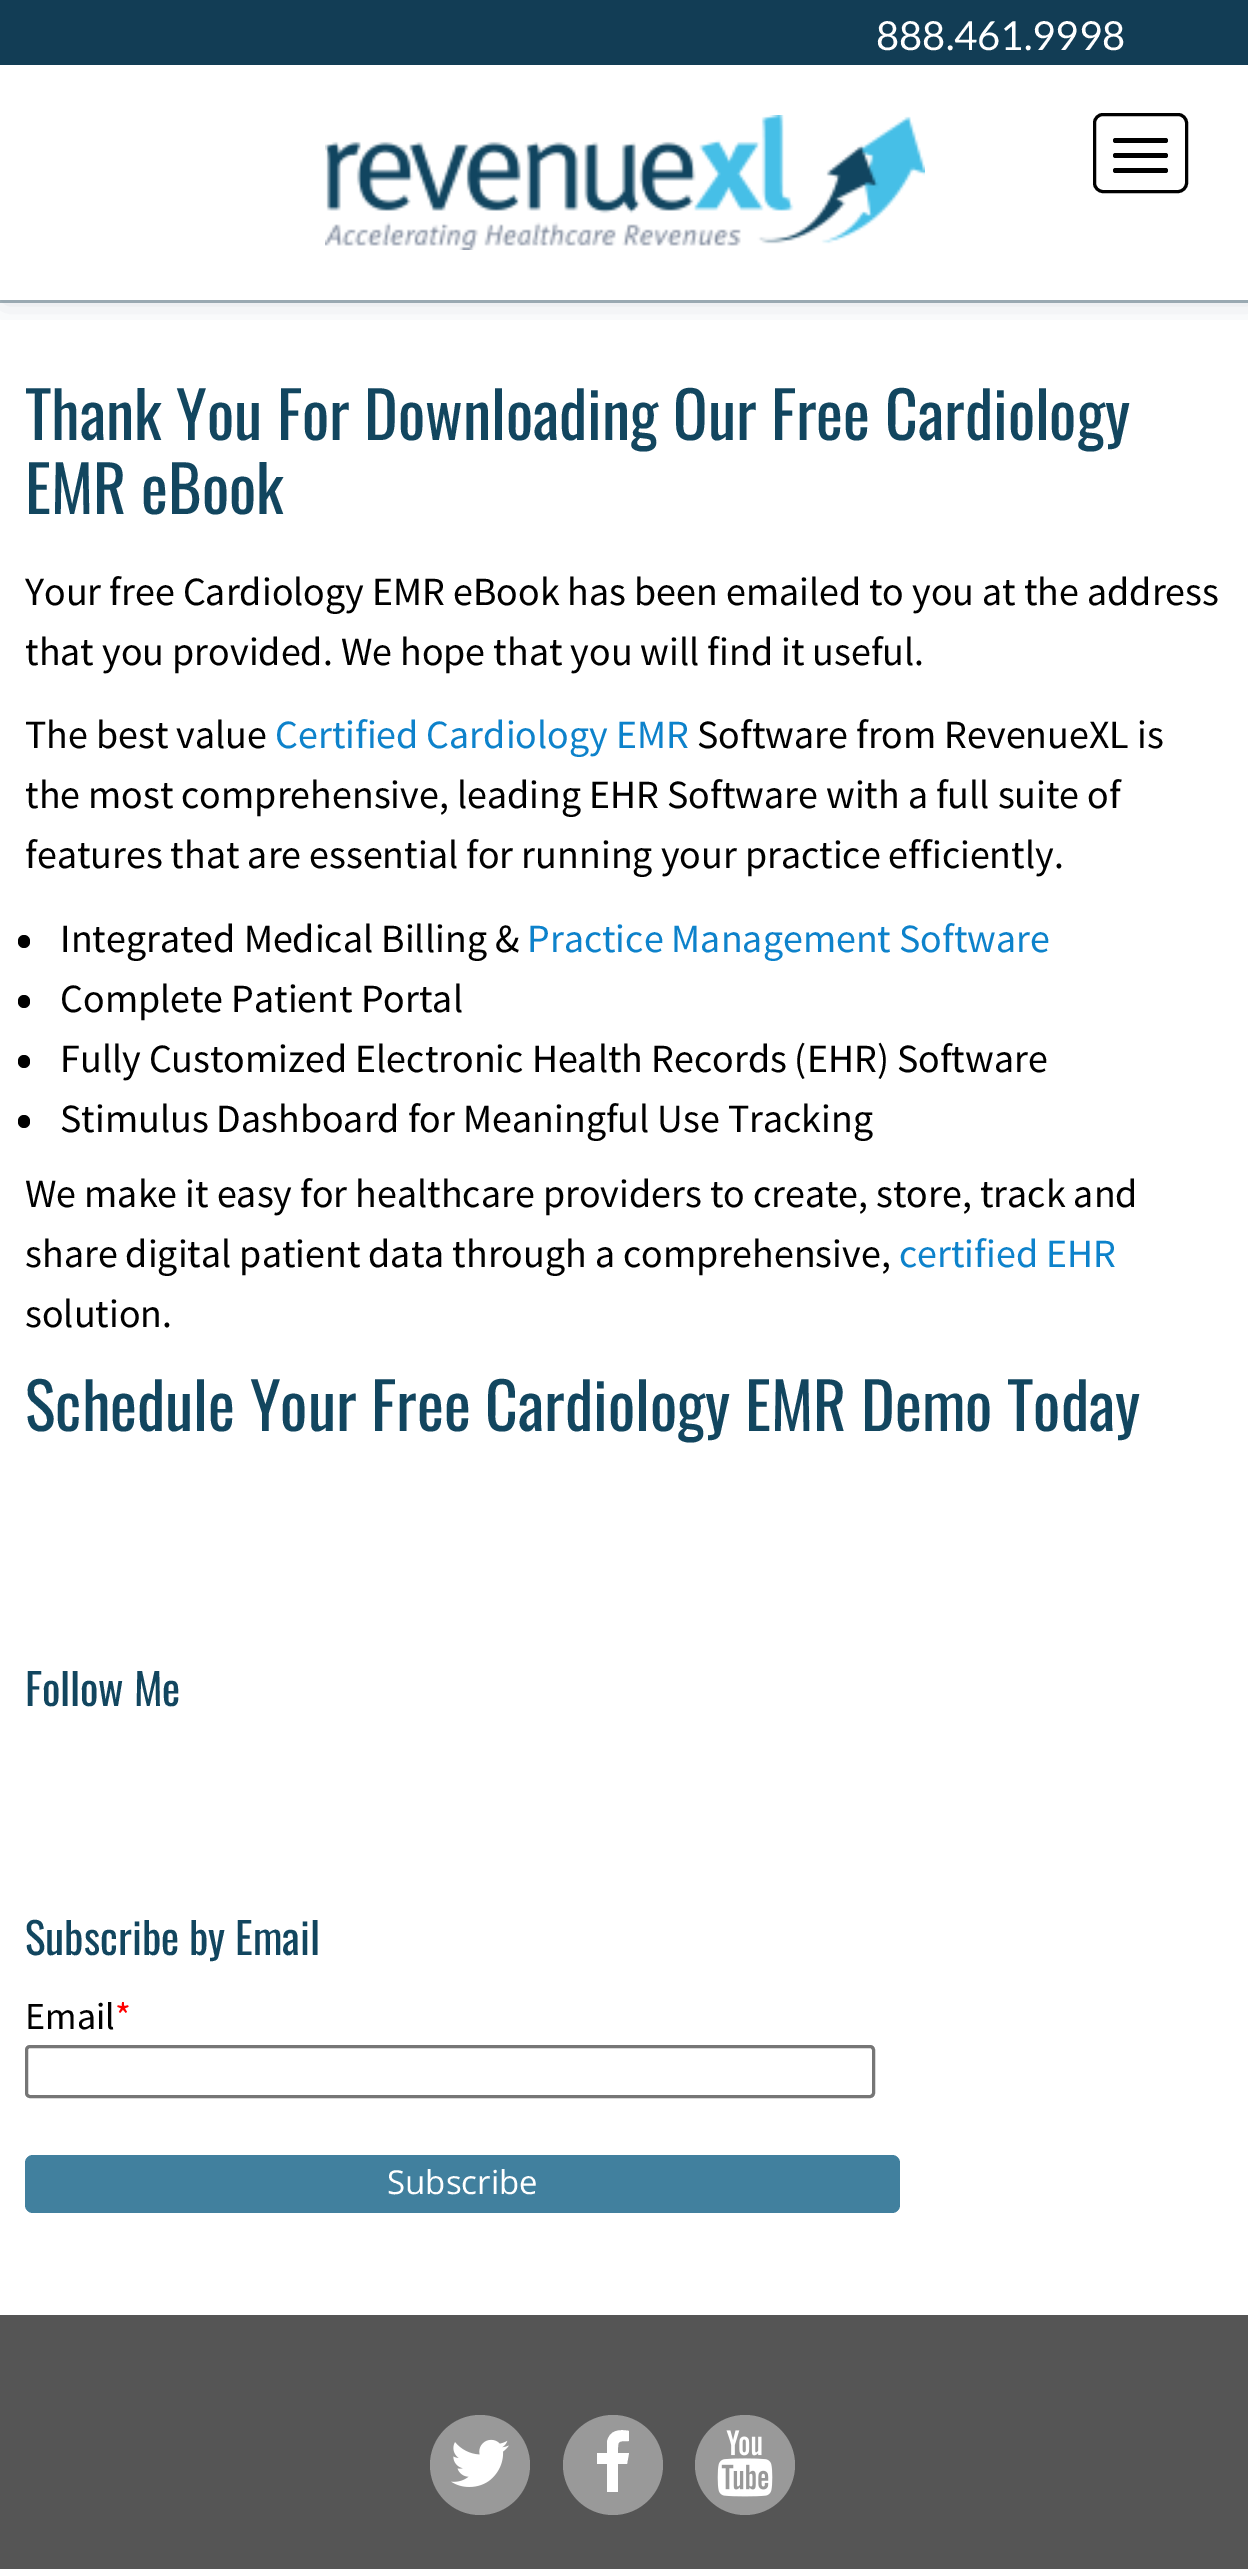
%!PS
<< /PageSize [1248 2569] /PageUsesTransparency true >> setpagedevice
/m/moveto load def
/l/rlineto load def
/c/rcurveto load def
/z/closepath load def
/f/fill load def
/s/stroke load def
/q/gsave load def
/Q_/grestore load def
/w/setlinewidth load def
/C { dup -16 bitshift 255 div exch dup -8 bitshift 255 and 255 div exch 255 and 255 div setrgbcolor } def
/F { [ exch dup neg 0 0 3 -1 roll 0 0 ] selectfont } def
/T { moveto show } def
/R { rectfill } def
/A { dup .setfillconstantalpha .setstrokeconstantalpha } def
/O { newpath 0 360 arc closepath } def
/Q { 5 dict begin { /r /h /w /y /x } { exch def } forall
  x r add y moveto x w add y 2 copy h add r arct x w add y h add x 1 index r arct
  x y h add x y r arct x y 2 copy exch w add exch r arct closepath end } def
/S { 12 dict begin { /a /b /q /h /w /y /x } { exch def } forall gsave /was 0 def
  9 -2 -9 { dup b mul 4 div /e exch def 1 sub .425 mul 2.718 exch exp 1 add a .99 .min exch div /now exch def
    1 1 now sub 1 was sub div sub A /was now def
    w h .min e 2 mul add 0 gt { x e sub y e sub w e 2 mul add h e 2 mul add
      q e add b .6 mul add w h .min 2 div e add .min 0 .max Q fill } if } for grestore end } def
/I { 5 dict begin { /h /w /y /x /name } { exch def } forall
  gsave x y translate w h scale
  w h 8 [w 0 0 h 0 0] name (r) file false 3 colorimage grestore end } def
0 .pushpdf14devicefilter
0 2569 translate 1 -1 scale
4 setmiterlimit
16#FFFFFF C
0 0 1248 2569 R
16#A3B2BA C
0 300 1248 3 R
q
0 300 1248 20 rectclip
16#27374A C
3 3 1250 300 0 15 .15 S
Q_
16#123D55 C
0 0 1248 65 R
/Lato-Regular 40 F
16#FFFFFF C
(888.461.9998) 876 50 T
(1.rgb) 325 115 600 135 I
16#000000 C
3 w
1094.5 114.5 92 77 8.5 Q s
1113 153 55 5 2.5 Q f
1113 138 55 5 2.5 Q f
1113 168 55 5 2.5 Q f
/Oswald-Regular 64 F
16#12465F C
(Thank You For Downloading Our Free Cardiology) 25 440 T
(EMR eBook) 25 514 T
/SourceSansPro-Regular 40 F
16#000000 C
(Your free Cardiology EMR eBook has been emailed to you at the address) 25 605 T
(that you provided. We hope that you will find it useful.) 25 665 T
(The best value) 25 748 T
16#0D82CB C
(Certified Cardiology EMR) 275 748 T
16#000000 C
(Software from RevenueXL is) 697 748 T
(the most comprehensive, leading EHR Software with a full suite of) 25 808 T
(features that are essential for running your practice efficiently.) 25 868 T
18 935 12 13 6 Q f
(Integrated Medical Billing &) 60 952 T
16#0D82CB C
(Practice Management Software) 527 952 T
16#000000 C
18 995 12 13 6 Q f
(Complete Patient Portal) 60 1012 T
18 1055 12 13 6 Q f
(Fully Customized Electronic Health Records \(EHR\) Software) 60 1072 T
18 1115 12 13 6 Q f
(Stimulus Dashboard for Meaningful Use Tracking) 60 1132 T
(We make it easy for healthcare providers to create, store, track and) 25 1207 T
(share digital patient data through a comprehensive,) 25 1267 T
16#0D82CB C
(certified EHR) 899 1267 T
16#000000 C
(solution.) 25 1327 T
/Oswald-Regular 64 F
16#12465F C
(Schedule Your Free Cardiology EMR Demo Today) 25 1431 T
/Oswald-Regular 43.25 F
(Follow Me) 25 1706 T
(Subscribe by Email) 25 1955 T
/SourceSansPro-Regular 38 F
16#000000 C
(Email) 25 2029 T
16#FF0000 C
(*) 115 2029 T
16#767676 C
26.5 2046.5 847 50 3.5 Q s
16#41809E C
25 2155 875 58 8 Q f
/OpenSans-Regular 33 F
16#FFFFFF C
(Subscribe) 387 2194 T
16#555555 C
0 2315 1248 254 R
16#999999 C
480 2465 50 O f
(2.rgb) 451 2439 58 48 I
613 2465 50 O f
16#FFFFFF C
629 2431 m 0 10 l -12 0 -11 0 -11 12 c 11 0 l -2 11 l -9 0 l 0 28 l -11 0 l 0 -28 l -10 0 l 0 -11 l 10 0 l 0 -11 l 2 -12 13 -13 22 -11 c z f
16#999999 C
745 2465 50 O f
(3.rgb) 717 2430 56 67 I
.poppdf14devicefilter showpage
